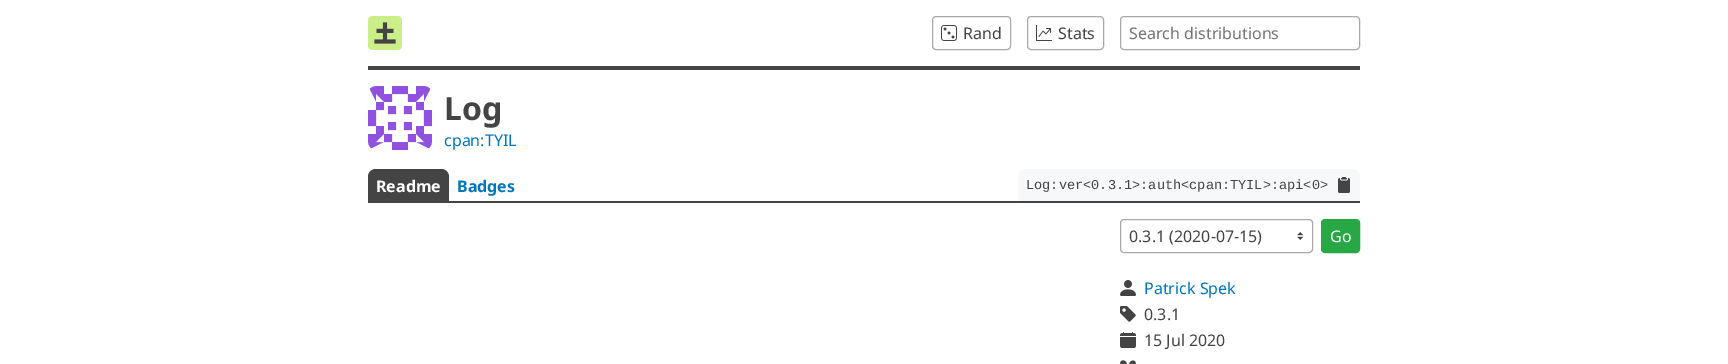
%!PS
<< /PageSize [1728 364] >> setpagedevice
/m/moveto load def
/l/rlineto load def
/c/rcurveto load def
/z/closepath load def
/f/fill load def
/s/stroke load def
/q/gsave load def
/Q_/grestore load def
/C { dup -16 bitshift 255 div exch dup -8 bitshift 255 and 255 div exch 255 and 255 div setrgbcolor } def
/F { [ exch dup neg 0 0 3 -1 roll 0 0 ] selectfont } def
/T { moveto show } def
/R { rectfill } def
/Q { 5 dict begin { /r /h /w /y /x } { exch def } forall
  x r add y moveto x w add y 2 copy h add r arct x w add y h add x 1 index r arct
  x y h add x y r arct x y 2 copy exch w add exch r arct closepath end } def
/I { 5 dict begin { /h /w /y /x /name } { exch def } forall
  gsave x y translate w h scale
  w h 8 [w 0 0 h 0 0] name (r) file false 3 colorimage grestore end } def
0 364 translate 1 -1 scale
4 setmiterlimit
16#FFFFFF C
0 0 1728 364 R
16#444444 C
368 66 992 4 R
(1.rgb) 368 16 34 34 I
16#AAAAAA C
932.5 16.5 78 33 3.5 Q s
(2.rgb) 941 25 16 16 I
/NotoSans-Regular 16 F
16#444444 C
(Rand) 963 39 T
16#AAAAAA C
1027.5 16.5 76 33 3.5 Q s
(3.rgb) 1036 25 16 16 I
16#444444 C
(Stats) 1058 39 T
16#AAAAAA C
1120.5 16.5 239 33 3.5 Q s
16#757575 C
(Search distributions) 1129 39 T
(4.rgb) 368 86 64 64 I
/NotoSans-Bold 32 F
16#444444 C
(Log) 444 120 T
/NotoSans-Regular 16 F
16#0077BB C
(cpan:TYIL) 444 146 T
16#444444 C
368 201 992 2 R
376 169 m 65 0 l 4.5 0 8 3.5 8 8 c 0 24 l -81 0 l 0 -24 l 0 -4.5 3.5 -8 8 -8 c z f
/NotoSans-Bold 16 F
16#FFFFFF C
(Readme) 376 192 T
16#0077BB C
(Badges) 457 192 T
16#F6F8FA C
1026 169 m 326 0 l 4.5 0 8 3.5 8 8 c 0 24 l -342 0 l 0 -24 l 0 -4.5 3.5 -8 8 -8 c z f
/LiberationMono-Regular 13.6 F
16#444444 C
(Log:ver<0.3.1>:auth<cpan:TYIL>:api<0>) 1026 189 T
(5.rgb) 1338 177 12 16 I
(6.rgb) 1297 232 7 8 I
16#AAAAAA C
1120.5 219.5 192 33 3.5 Q s
/NotoSans-Regular 16 F
16#444444 C
(0.3.1 \(2020-07-15\)) 1129 242 T
16#28A745 C
1321.5 219.5 38 33 3.5 Q q f Q_
s
16#FFFFFF C
(Go) 1330 242 T
(7.rgb) 1120 280 16 16 I
16#0077BB C
(Patrick Spek) 1144 294 T
(8.rgb) 1120 306 16 16 I
16#444444 C
(0.3.1) 1144 320 T
(9.rgb) 1120 332 16 16 I
(15 Jul 2020) 1144 346 T
(10.rgb) 1120 360 16 4 I
showpage
